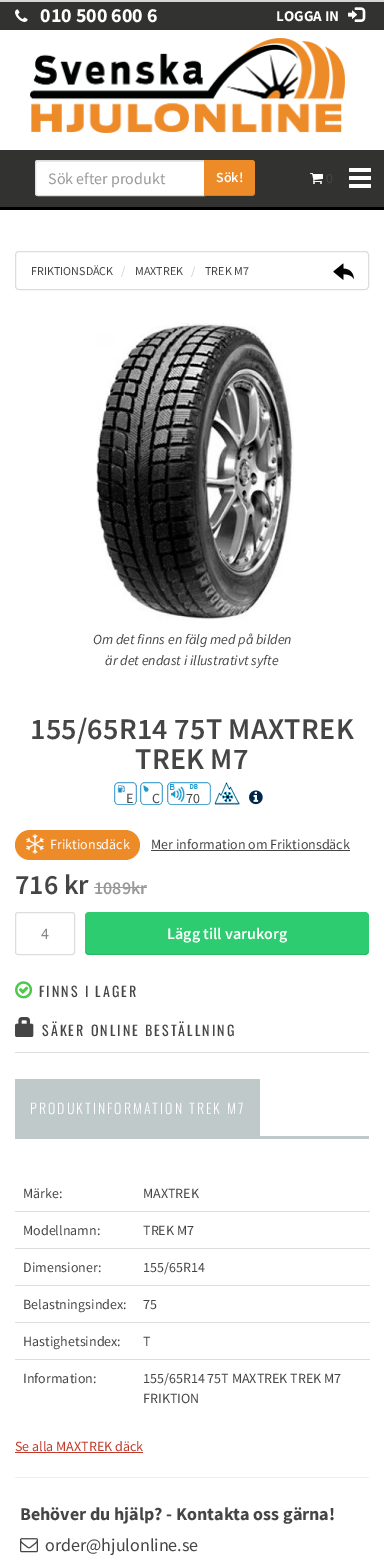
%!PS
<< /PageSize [384 1555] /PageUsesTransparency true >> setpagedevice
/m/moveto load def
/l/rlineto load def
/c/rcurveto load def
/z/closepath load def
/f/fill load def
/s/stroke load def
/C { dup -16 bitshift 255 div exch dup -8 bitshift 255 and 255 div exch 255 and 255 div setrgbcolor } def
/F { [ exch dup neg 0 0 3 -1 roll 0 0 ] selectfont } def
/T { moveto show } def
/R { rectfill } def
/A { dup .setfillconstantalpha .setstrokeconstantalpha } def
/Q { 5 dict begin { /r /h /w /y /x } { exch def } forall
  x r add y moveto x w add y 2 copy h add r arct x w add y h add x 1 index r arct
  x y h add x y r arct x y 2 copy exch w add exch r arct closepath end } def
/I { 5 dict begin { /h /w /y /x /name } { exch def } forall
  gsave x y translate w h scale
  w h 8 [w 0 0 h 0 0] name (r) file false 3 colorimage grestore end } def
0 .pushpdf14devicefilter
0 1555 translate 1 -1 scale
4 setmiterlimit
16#FFFFFF C
0 0 384 1555 R
16#D6D6D6 C
0 0 384 2 R
16#323231 C
0 2 384 28 R
(1.rgb) 15 9 13 13 I
/SourceSansPro-Bold 20 F
16#FFFFFF C
(010 500 600 6) 40 22 T
/SourceSansPro-Bold 15 F
(LOGGA IN) 276 21 T
(2.rgb) 348 7 18 15 I
(3.rgb) 30 38 315 95 I
16#323231 C
0 150 384 57 R
16#FFFFFF C
38 160 m 167 0 l 0 36 l -167 0 l -1.5 0 -3 -1.5 -3 -3 c 0 -30 l 0 -1.5 1.5 -3 3 -3 c z f
16#ECECEC C
38 162 m 166 0 l 0 -1 l -166 0 l -2 0 -2 2 -2 3 c 0 -1 1 -2 2 -2 c z f
16#DDDDDD C
38 160.5 m 166.5 0 l 0 35 l -166.5 0 l -1.5 0 -2.5 -1 -2.5 -2.5 c 0 -30 l 0 -1.5 1 -2.5 2.5 -2.5 c z s
/SourceSansPro-Regular 16 F
16#999999 C
(Sök efter produkt) 48 184 T
16#EE8B29 C
204 160 m 48 0 l 1.5 0 3 1.5 3 3 c 0 30 l 0 1.5 -1.5 3 -3 3 c -48 0 l z f
0.1 A
16#000000 C
204 195 m 0 1 l 48 0 l 2 0 3 -1 3 -3 c 0 -1 l 0 2 -1 3 -3 3 c z f
/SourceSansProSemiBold-SemiBold 14 F
1 A
16#FFFFFF C
(Sök!) 216 182 T
16#000000 C
0 207 384 3 R
(4.rgb) 310 173 13 11 I
/SourceSansPro-Regular 14 F
16#454545 C
(0) 326 183 T
16#FFFFFF C
349 168 22 4 1 Q f
349 176 22 4 1 Q f
349 184 22 4 1 Q f
16#DDDDDD C
15.5 251.5 353 38 3.5 Q s
/SourceSansPro-Regular 12 F
16#454545 C
(FRIKTIONSDÄCK) 31 275 T
16#CCCCCC C
(/) 121 275 T
16#454545 C
(MAXTREK) 135 275 T
16#CCCCCC C
(/) 191 275 T
16#454545 C
(TREK M7) 205 275 T
(5.rgb) 333 263 21 17 I
(6.rgb) 96 323 198 297 I
/SourceSansPro-Italic 14 F
(Om det finns en fälg med på bilden) 93 644 T
(är det endast i illustrativt syfte) 105 665 T
/SourceSansProSemiBold-SemiBold 30 F
30 739 m .25 0 (155/65R14 75T MAXTREK) ashow
135 769 m .25 0 (TREK M7) ashow
(7.rgb) 114 782 23 23 I
(8.rgb) 140 782 23 23 I
(9.rgb) 167 782 44 23 I
(10.rgb) 214 782 26 23 I
(11.rgb) 249 790 14 15 I
/SourceSansPro-Regular 14 F
(E) 126 803 T
(C) 152 803 T
(70) 186 803 T
16#EE8B29 C
15 830 125 30 15 Q f
(12.rgb) 26 834 18 20 I
16#FFFFFF C
(Friktionsdäck) 50 849 T
16#454545 C
(Mer information om Friktionsdäck) 151 849 T
151 850 199 1 R
/SourceSansProSemiBold-SemiBold 28 F
(716 kr) 15 894 T
/SourceSansProSemiBold-SemiBold 18 F
16#999999 C
(1089kr) 94 894 T
94 887 53 1 R
16#DDDDDD C
15.5 912.5 59 42 2.5 Q s
/SourceSansPro-Regular 16 F
16#888888 C
(4) 41 939 T
16#2ECC71 C
85 912 284 43 4 Q f
0.1 A
16#000000 C
85 950 m 0 3 1 5 4 5 c 276 0 l 3 0 4 -2 4 -5 c 0 2 -2 4 -4 4 c -276 0 l -2 0 -4 -2 -4 -4 c z f
/SourceSansProSemiBold-SemiBold 16 F
1 A
16#FFFFFF C
(Lägg till varukorg) 167 939 T
16#DDDDDD C
15 1052 354 1 R
(13.rgb) 15 981 18 18 I
/Oswald-Regular 14 F
16#454545 C
39 997 m 2 0 (FINNS I LAGER) ashow
(14.rgb) 15 1017 19 20 I
42 1036 m 2 0 (SÄKER ONLINE BESTÄLLNING) ashow
16#BFC9CA C
15 1136 354 3 R
15 1079 245 57 R
/Oswald-Light 14 F
16#FFFFFF C
30 1114 m 2 0 (PRODUKTINFORMATION TREK M7) ashow
/SourceSansPro-Regular 14 F
16#454545 C
(Märke:) 23 1198 T
(MAXTREK) 143 1198 T
(Modellnamn:) 23 1235 T
16#DDDDDD C
15 1211 355 1 R
16#454545 C
(TREK M7) 143 1235 T
(Dimensioner:) 23 1272 T
16#DDDDDD C
15 1248 355 1 R
16#454545 C
(155/65R14) 143 1272 T
(Belastningsindex:) 23 1309 T
16#DDDDDD C
15 1285 355 1 R
16#454545 C
(75) 143 1309 T
(Hastighetsindex:) 23 1346 T
16#DDDDDD C
15 1322 355 1 R
16#454545 C
(T) 143 1346 T
(Information:) 23 1383 T
16#DDDDDD C
15 1359 355 1 R
16#454545 C
(155/65R14 75T MAXTREK TREK M7) 143 1383 T
(FRIKTION) 143 1403 T
16#C0392B C
(Se alla MAXTREK däck) 15 1451 T
15 1452 128 1 R
16#EEEEEE C
15 1477 354 1 R
/SourceSansPro-Bold 18 F
16#454545 C
(Behöver du hjälp? - Kontakta oss gärna!) 20 1520 T
(15.rgb) 20 1538 18 15 I
/SourceSansPro-Regular 18 F
(order@hjulonline.se) 45 1551 T
.poppdf14devicefilter showpage
